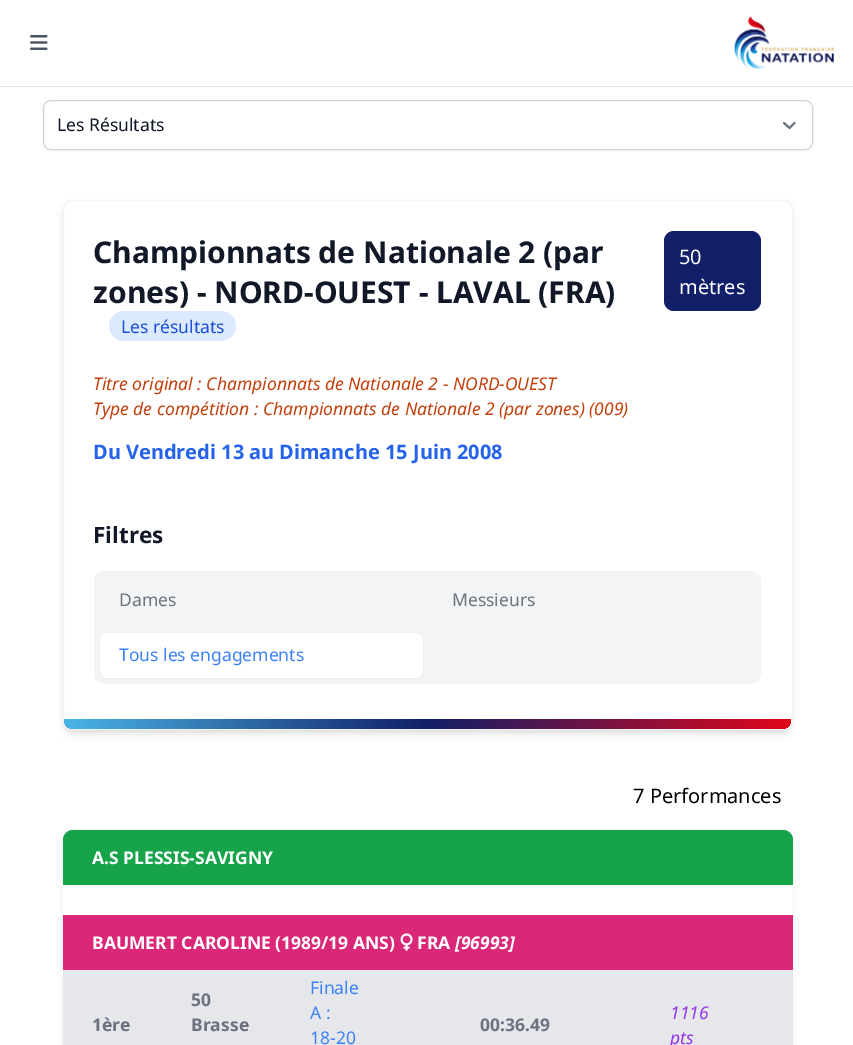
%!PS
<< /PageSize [853 1045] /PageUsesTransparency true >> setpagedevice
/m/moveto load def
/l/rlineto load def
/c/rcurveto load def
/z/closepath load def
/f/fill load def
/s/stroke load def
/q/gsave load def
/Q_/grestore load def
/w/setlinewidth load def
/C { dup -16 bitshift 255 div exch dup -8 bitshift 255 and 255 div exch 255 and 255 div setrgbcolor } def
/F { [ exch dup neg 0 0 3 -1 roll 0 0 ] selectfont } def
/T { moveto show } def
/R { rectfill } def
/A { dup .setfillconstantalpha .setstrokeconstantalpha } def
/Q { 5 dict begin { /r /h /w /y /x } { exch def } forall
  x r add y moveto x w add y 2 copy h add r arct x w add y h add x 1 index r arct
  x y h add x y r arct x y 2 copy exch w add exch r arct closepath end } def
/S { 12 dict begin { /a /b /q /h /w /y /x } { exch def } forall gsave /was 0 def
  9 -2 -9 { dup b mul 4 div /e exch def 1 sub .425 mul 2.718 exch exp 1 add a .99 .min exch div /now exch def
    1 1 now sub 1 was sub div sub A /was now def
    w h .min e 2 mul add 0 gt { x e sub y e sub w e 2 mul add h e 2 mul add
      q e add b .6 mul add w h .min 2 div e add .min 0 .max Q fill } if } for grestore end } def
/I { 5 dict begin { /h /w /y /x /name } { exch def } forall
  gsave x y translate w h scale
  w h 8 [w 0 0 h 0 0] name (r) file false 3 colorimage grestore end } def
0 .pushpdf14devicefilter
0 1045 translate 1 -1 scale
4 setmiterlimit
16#FFFFFF C
0 0 853 1045 R
16#E5E7EB C
0 86 853 1 R
(1.rgb) 30 35 18 15 I
(2.rgb) 734 16 100 53 I
16#000000 C
43 101 770 50 8 1 .05 S
16#FFFFFF C
43 100 770 50 8 Q f
16#6B7280 C
2 w
1 setlinecap
1 setlinejoin
784 123 m 5.5 5 l 5 -5 l s
16#D1D5DB C
1 w
0 setlinecap
0 setlinejoin
43.5 100.5 769 49 7.5 Q s
/NotoSans-Regular 17.5 F
16#111827 C
(Les Résultats) 57 131 T
q
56 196 m 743 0 l 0 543 l -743 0 l z 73 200 m 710 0 l 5.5 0 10 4.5 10 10 c 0 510 l 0 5.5 -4.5 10 -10 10 c -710 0 l -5.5 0 -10 -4.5 -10 -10 c 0 -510 l 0 -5.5 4.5 -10 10 -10 c z eoclip newpath
16#000000 C
65 205 725 525 8 2.5 .1 S
Q_
q
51 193 m 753 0 l 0 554 l -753 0 l z 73 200 m 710 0 l 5.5 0 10 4.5 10 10 c 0 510 l 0 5.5 -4.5 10 -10 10 c -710 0 l -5.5 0 -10 -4.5 -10 -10 c 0 -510 l 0 -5.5 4.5 -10 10 -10 c z eoclip newpath
16#000000 C
64 206 727 528 9 4 .1 S
Q_
16#F3F4F6 C
63.5 200.5 729 529 9.5 Q s
/NotoSans-Bold 30 F
16#111827 C
(Championnats de Nationale 2 \(par) 93 263 T
(zones\) - NORD-OUEST - LAVAL \(FRA\)) 93 303 T
16#DBEAFE C
109 311 127 30 15 Q f
/NotoSans-Regular 17.5 F
16#1D4ED8 C
(Les résultats) 121 333 T
16#111F69 C
664 231 97 80 10 Q f
/NotoSans-Regular 20 F
16#FFFFFF C
(50) 679 264 T
(mètres) 679 294 T
/NotoSans-Italic 17.5 F
16#C2410C C
(Titre original : Championnats de Nationale 2 - NORD-OUEST) 93 390 T
(Type de compétition : Championnats de Nationale 2 \(par zones\) \(009\)) 93 415 T
/NotoSans-Bold 20 F
16#2563EB C
(Du Vendredi 13 au Dimanche 15 Juin 2008) 93 459 T
/NotoSans-Bold 22.5 F
16#111827 C
(Filtres) 93 543 T
16#F3F4F6 C
94.5 571.5 666 112 9.5 Q q f Q_
s
/NotoSans-Regular 17.5 F
16#6B7280 C
(Dames) 119 606 T
(Messieurs) 452 606 T
16#000000 C
100 634 323 45 8 1 .05 S
16#FFFFFF C
100 633 323 45 8 Q f
16#3B82F6 C
(Tous les engagements) 119 661 T
q 64 719 m 727 0 l 0 1 l 0 5 -4 9 -9 9 c -709 0 l -5 0 -9 -4 -9 -9 c z clip newpath
<< /ShadingType 2 /ColorSpace /DeviceRGB /Coords [64 724 791 724] /Extend [true true] /Function << /FunctionType 3 /Domain [0 1] /Functions [<< /FunctionType 2 /Domain [0 1] /C0 [.29 .706 .902] /C1 [.067 .122 .408] /N 1 >> << /FunctionType 2 /Domain [0 1] /C0 [.067 .122 .408] /C1 [.886 .024 .102] /N 1 >>] /Bounds [.5] /Encode [0 1 0 1] >> >> shfill Q_
/NotoSans-Regular 20 F
16#000000 C
(7 Performances) 633 803 T
64 836 727 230 9 4 .1 S
16#16A34A C
73 830 m 710 0 l 5.5 0 10 4.5 10 10 c 0 75 l -730 0 l 0 -75 l 0 -5.5 4.5 -10 10 -10 c z f
/NotoSans-Bold 17.5 F
16#FFFFFF C
(A.S PLESSIS-SAVIGNY) 92 864 T
63 885 730 30 R
16#DB2777 C
63 915 730 55 R
16#FFFFFF C
(BAUMERT CAROLINE \(1989/19 ANS\)) 92 949 T
(3.rgb) 400 933 13 18 I
(FRA) 417 949 T
/NotoSans-BoldItalic 17.5 F
([96993]) 455 949 T
16#E5E7EB C
63 970 730 75 R
/NotoSans-Bold 17.5 F
16#6B7280 C
(1ère) 92 1031 T
(50) 191 1006 T
(Brasse) 191 1031 T
/NotoSans-Regular 17.5 F
16#3B82F6 C
(Finale) 310 994 T
(A :) 310 1019 T
(18-20) 310 1044 T
/NotoSans-Bold 17.5 F
16#6B7280 C
(00:36.49) 480 1031 T
/NotoSans-Italic 17.5 F
16#9333EA C
(1116) 670 1019 T
(pts) 670 1044 T
.poppdf14devicefilter showpage
